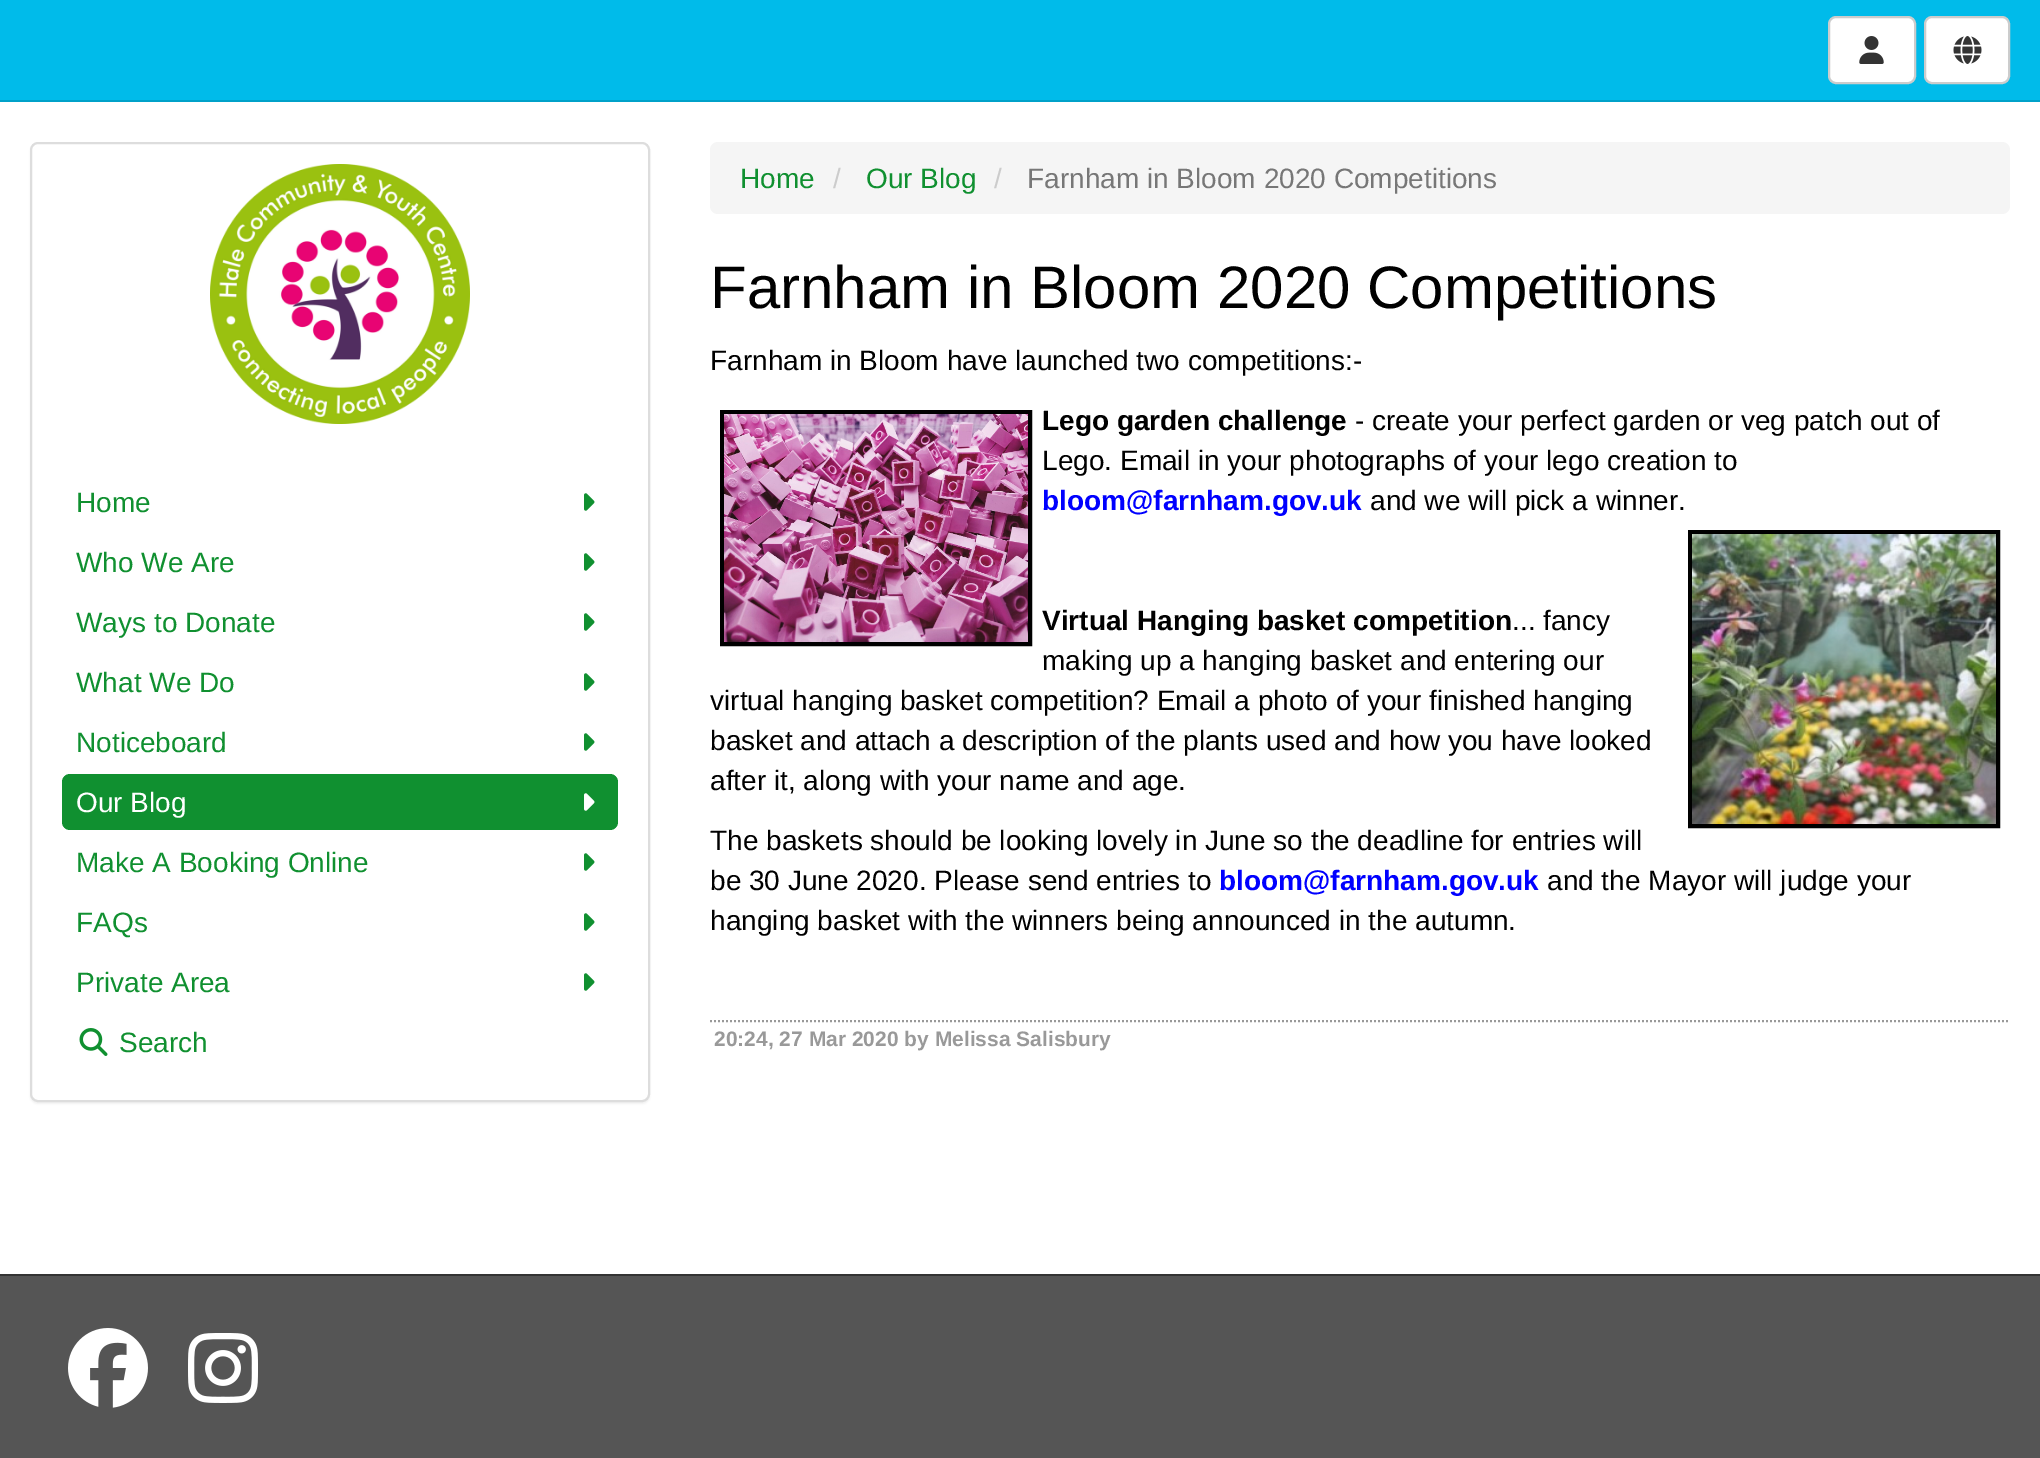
%!PS
<< /PageSize [2040 1458] /PageUsesTransparency true >> setpagedevice
/m/moveto load def
/l/rlineto load def
/f/fill load def
/s/stroke load def
/q/gsave load def
/Q_/grestore load def
/w/setlinewidth load def
/C { dup -16 bitshift 255 div exch dup -8 bitshift 255 and 255 div exch 255 and 255 div setrgbcolor } def
/F { [ exch dup neg 0 0 3 -1 roll 0 0 ] selectfont } def
/T { moveto show } def
/R { rectfill } def
/A { dup .setfillconstantalpha .setstrokeconstantalpha } def
/Q { 5 dict begin { /r /h /w /y /x } { exch def } forall
  x r add y moveto x w add y 2 copy h add r arct x w add y h add x 1 index r arct
  x y h add x y r arct x y 2 copy exch w add exch r arct closepath end } def
/S { 12 dict begin { /a /b /q /h /w /y /x } { exch def } forall gsave /was 0 def
  9 -2 -9 { dup b mul 4 div /e exch def 1 sub .425 mul 2.718 exch exp 1 add a .99 .min exch div /now exch def
    1 1 now sub 1 was sub div sub A /was now def
    w h .min e 2 mul add 0 gt { x e sub y e sub w e 2 mul add h e 2 mul add
      q e add b .6 mul add w h .min 2 div e add .min 0 .max Q fill } if } for grestore end } def
/I { 5 dict begin { /h /w /y /x /name } { exch def } forall
  gsave x y translate w h scale
  w h 8 [w 0 0 h 0 0] name (r) file false 3 colorimage grestore end } def
0 .pushpdf14devicefilter
0 1458 translate 1 -1 scale
4 setmiterlimit
16#FFFFFF C
0 0 2040 1458 R
16#00BBEA C
0 0 2040 100 R
16#00A1C9 C
0 100 2040 2 R
16#FFFFFF C
1829 17 86 66 7 Q q f Q_
16#CCCCCC C
2 w
s
(1.rgb) 1859 36 25 28 I
16#FFFFFF C
1925 17 84 66 7 Q q f Q_
16#CCCCCC C
s
(2.rgb) 1953 36 29 28 I
16#000000 C
30 144 620 960 8 1 .05 S
16#FFFFFF C
31 143 618 958 7 Q q f Q_
16#DDDDDD C
s
(3.rgb) 210 164 260 260 I
/LiberationSans-Regular 28 F
16#109030 C
(Home) 76 512 T
(4.rgb) 584 493 11 18 I
(Who We Are) 76 572 T
(4.rgb) 584 553 11 18 I
(Ways to Donate) 76 632 T
(4.rgb) 584 613 11 18 I
(What We Do) 76 692 T
(4.rgb) 584 673 11 18 I
(Noticeboard) 76 752 T
(4.rgb) 584 733 11 18 I
62 774 556 56 8 Q f
16#FFFFFF C
(Our Blog) 76 812 T
(5.rgb) 584 793 11 18 I
16#109030 C
(Make A Booking Online) 76 872 T
(4.rgb) 584 853 11 18 I
(FAQs) 76 932 T
(4.rgb) 584 913 11 18 I
(Private Area) 76 992 T
(4.rgb) 584 973 11 18 I
(6.rgb) 79 1028 29 28 I
(Search) 119 1052 T
16#F5F5F5 C
710 142 1300 72 8 Q f
16#109030 C
(Home) 740 188 T
16#CCCCCC C
(/) 833 188 T
16#109030 C
(Our Blog) 866 188 T
16#CCCCCC C
(/) 994 188 T
16#777777 C
(Farnham in Bloom 2020 Competitions) 1027 188 T
/LiberationSans-Regular 60 F
16#000000 C
(Farnham in Bloom 2020 Competitions) 710 308 T
/LiberationSans-Regular 28 F
(Farnham in Bloom have launched two competitions:-) 710 370 T
4 w
722 412 308 232 rectstroke
(7.rgb) 724 414 304 228 I
/LiberationSans-Bold 28 F
(Lego garden challenge) 1042 430 T
/LiberationSans-Regular 28 F
(- create your perfect garden or veg patch out of) 1355 430 T
(Lego. Email in your photographs of your lego creation to) 1042 470 T
/LiberationSans-Bold 28 F
16#0000FF C
(bloom@farnham.gov.uk) 1042 510 T
/LiberationSans-Regular 28 F
16#000000 C
(and we will pick a winner.) 1370 510 T
1690 532 308 294 rectstroke
(8.rgb) 1692 534 304 290 I
/LiberationSans-Bold 28 F
(Virtual Hanging basket competition) 1042 630 T
/LiberationSans-Regular 28 F
(... fancy) 1512 630 T
(making up a hanging basket and entering our) 1042 670 T
(virtual hanging basket competition? Email a photo of your finished hanging) 710 710 T
(basket and attach a description of the plants used and how you have looked) 710 750 T
(after it, along with your name and age.) 710 790 T
(The baskets should be looking lovely in June so the deadline for entries will) 710 850 T
(be 30 June 2020. Please send entries to) 710 890 T
/LiberationSans-Bold 28 F
16#0000FF C
(bloom@farnham.gov.uk) 1219 890 T
/LiberationSans-Regular 28 F
16#000000 C
(and the Mayor will judge your) 1547 890 T
(hanging basket with the winners being announced in the autumn.) 710 930 T
16#999999 C
2 w
[2 2] 0 setdash
710 1021 m 1300 0 l s
/LiberationSans-Bold 21 F
(20:24, 27 Mar 2020 by Melissa Salisbury) 714 1046 T
16#555555 C
0 1276 2040 182 R
16#333333 C
0 1274 2040 2 R
(9.rgb) 68 1328 80 80 I
(10.rgb) 188 1333 70 70 I
.poppdf14devicefilter showpage
